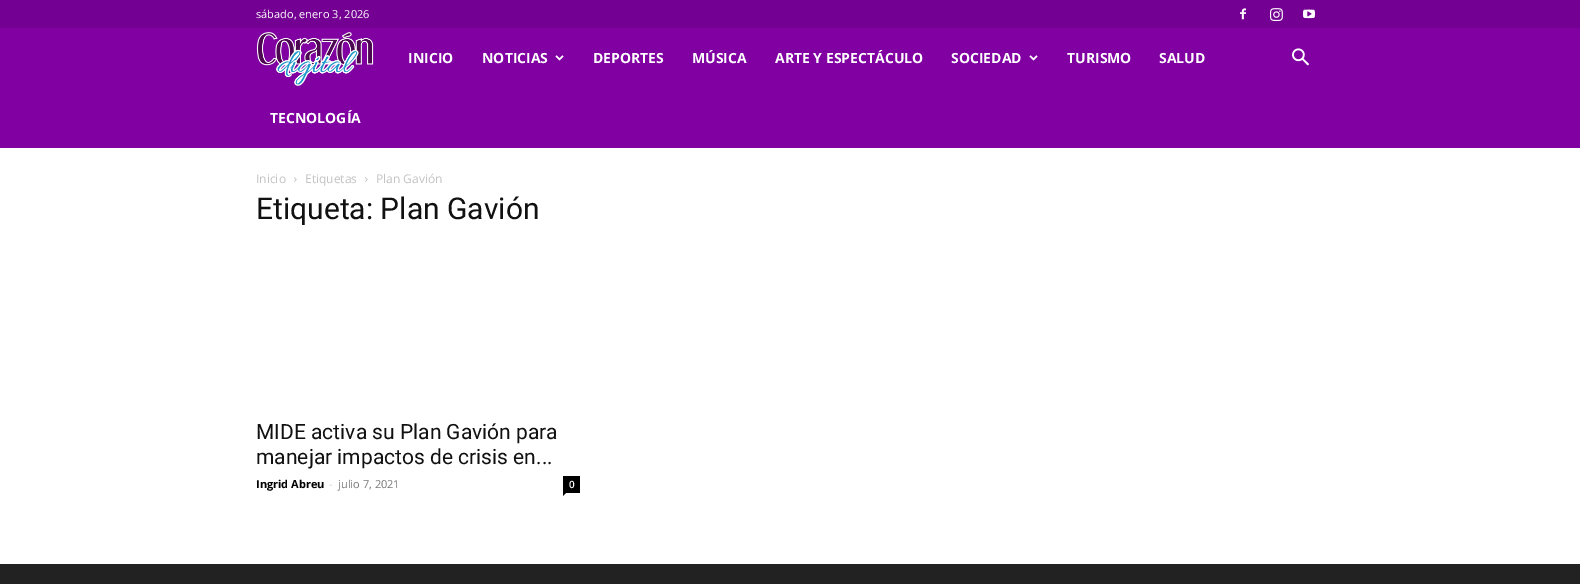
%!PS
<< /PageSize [1580 584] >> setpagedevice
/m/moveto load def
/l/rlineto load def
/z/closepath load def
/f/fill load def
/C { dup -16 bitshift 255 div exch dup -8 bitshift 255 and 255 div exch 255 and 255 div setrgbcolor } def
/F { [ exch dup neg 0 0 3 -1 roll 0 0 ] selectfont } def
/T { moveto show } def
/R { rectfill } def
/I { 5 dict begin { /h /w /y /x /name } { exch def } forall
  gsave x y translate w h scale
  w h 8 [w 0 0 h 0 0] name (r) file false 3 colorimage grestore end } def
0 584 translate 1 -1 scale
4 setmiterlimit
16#FFFFFF C
0 0 1580 584 R
16#730092 C
0 0 1580 28 R
/OpenSans-Regular 11 F
16#FFFFFF C
(sábado, enero 3, 2026) 256 18 T
(1.rgb) 1240 8 6 12 I
(2.rgb) 1270 8 13 13 I
(3.rgb) 1303 9 12 10 I
16#8000A2 C
0 28 1580 120 R
(4.rgb) 256 32 118 54 I
/OpenSans-Bold 14 F
16#FFFFFF C
(INICIO) 408 63 T
(NOTICIAS) 482 63 T
(5.rgb) 555 55 9 6 I
(DEPORTES) 593 63 T
(MÚSICA) 692 63 T
(ARTE Y ESPECTÁCULO) 775 63 T
(SOCIEDAD) 951 63 T
(5.rgb) 1029 55 9 6 I
(TURISMO) 1067 63 T
(SALUD) 1159 63 T
(TECNOLOGÍA) 270 123 T
(6.rgb) 1292 48 17 18 I
/OpenSans-Regular 12 F
16#C3C3C3 C
(Inicio) 256 183 T
(7.rgb) 294 177 3 5 I
(Etiquetas) 305 183 T
(7.rgb) 365 177 3 5 I
(Plan Gavión) 376 183 T
/Roboto-Regular 30 F
16#111111 C
(Etiqueta: Plan Gavión) 256 219 T
/Roboto-Regular 21 F
(MIDE activa su Plan Gavión para) 256 439 T
(manejar impactos de crisis en...) 256 464 T
/OpenSans-Bold 11 F
16#000000 C
(Ingrid Abreu) 256 488 T
/OpenSans-Regular 11 F
16#CCCCCC C
(-) 329 488 T
16#767676 C
(julio 7, 2021) 338 488 T
16#000000 C
563 476 17 17 R
/OpenSans-SemiBold 10 F
16#FFFFFF C
(0) 569 488 T
16#000000 C
563 493 m 3 0 l -3 3 l z f
16#222222 C
0 564 1580 20 R
showpage
